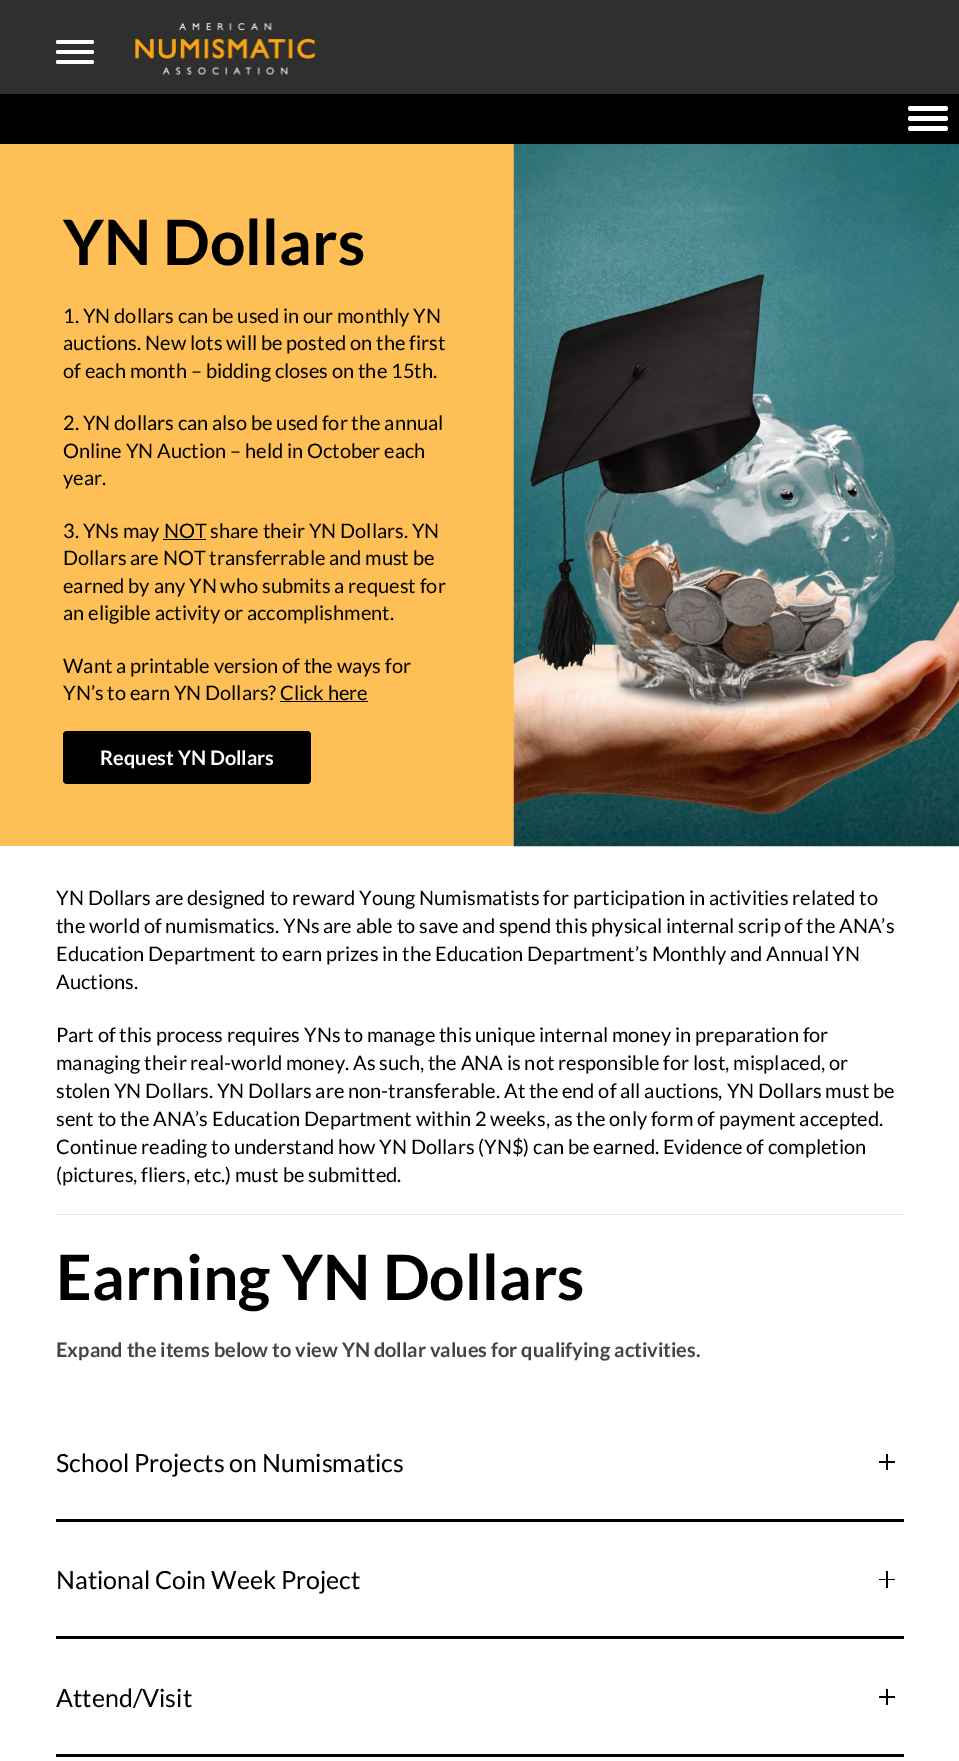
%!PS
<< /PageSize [959 1761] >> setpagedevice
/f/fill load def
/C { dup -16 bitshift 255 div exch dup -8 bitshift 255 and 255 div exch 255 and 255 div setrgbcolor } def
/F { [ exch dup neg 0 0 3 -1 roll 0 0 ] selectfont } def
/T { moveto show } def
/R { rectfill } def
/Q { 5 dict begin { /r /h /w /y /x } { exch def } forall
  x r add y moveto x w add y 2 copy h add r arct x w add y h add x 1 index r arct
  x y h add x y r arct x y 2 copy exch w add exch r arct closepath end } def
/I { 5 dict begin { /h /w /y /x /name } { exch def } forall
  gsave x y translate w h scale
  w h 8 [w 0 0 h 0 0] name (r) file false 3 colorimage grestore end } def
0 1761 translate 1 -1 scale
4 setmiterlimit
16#FFFFFF C
0 0 959 1761 R
16#2F2F2D C
0 0 959 94 R
16#FFFFFF C
56 50 38 4 2 Q f
56 40 38 4 2 Q f
56 60 38 4 2 Q f
(1.rgb) 135 23 181 52 I
16#000000 C
0 94 959 50 R
16#FFFFFF C
908 106 40 5 2.5 Q f
908 116 40 5 2.5 Q f
908 126 40 5 2.5 Q f
16#FDBF56 C
0 144 514 702 R
/Lato-Bold 62.5 F
16#000000 C
(YN Dollars) 63 265 T
/Lato-Regular 20 F
(1. YN dollars can be used in our monthly YN) 63 323 T
(auctions. New lots will be posted on the first) 63 350 T
(of each month – bidding closes on the 15th.) 63 378 T
(2. YN dollars can also be used for the annual) 63 430 T
(Online YN Auction – held in October each) 63 458 T
(year.) 63 485 T
(3. YNs may NOT share their YN Dollars. YN) 63 538 T
163 539 43 1 R
(Dollars are NOT transferrable and must be) 63 565 T
(earned by any YN who submits a request for) 63 593 T
(an eligible activity or accomplishment.) 63 620 T
(Want a printable version of the ways for) 63 673 T
(YN’s to earn YN Dollars? Click here) 63 700 T
280 701 88 1 R
63 731 248 53 4 Q f
/Lato-Bold 20 F
16#FFFFFF C
(Request YN Dollars) 100 765 T
(2.rgb) 513 144 446 703 I
/Lato-Regular 20 F
16#000000 C
(YN Dollars are designed to reward Young Numismatists for participation in activities related to) 56 905 T
(the world of numismatics. YNs are able to save and spend this physical internal scrip of the ANA’s) 56 933 T
(Education Department to earn prizes in the Education Department’s Monthly and Annual YN) 56 961 T
(Auctions.) 56 989 T
(Part of this process requires YNs to manage this unique internal money in preparation for) 56 1042 T
(managing their real-world money. As such, the ANA is not responsible for lost, misplaced, or) 56 1070 T
(stolen YN Dollars. YN Dollars are non-transferable. At the end of all auctions, YN Dollars must be) 56 1098 T
(sent to the ANA’s Education Department within 2 weeks, as the only form of payment accepted.) 56 1126 T
(Continue reading to understand how YN Dollars \(YN$\) can be earned. Evidence of completion) 56 1154 T
(\(pictures, fliers, etc.\) must be submitted.) 56 1182 T
16#E5E5E5 C
56 1214 848 1 R
/Lato-Bold 62.5 F
16#000000 C
(Earning YN Dollars) 56 1300 T
/Lato-Bold 20 F
16#444444 C
(Expand the items below to view YN dollar values for qualifying activities.) 56 1357 T
/Lato-Regular 25 F
16#000000 C
(School Projects on Numismatics) 56 1472 T
879 1461 16 2 R
886 1454 2 16 R
56 1519 848 3 R
(National Coin Week Project) 56 1589 T
879 1579 16 1 R
886 1571 2 17 R
56 1636 848 3 R
(Attend/Visit) 56 1707 T
879 1696 16 2 R
886 1689 2 16 R
56 1754 848 3 R
showpage
